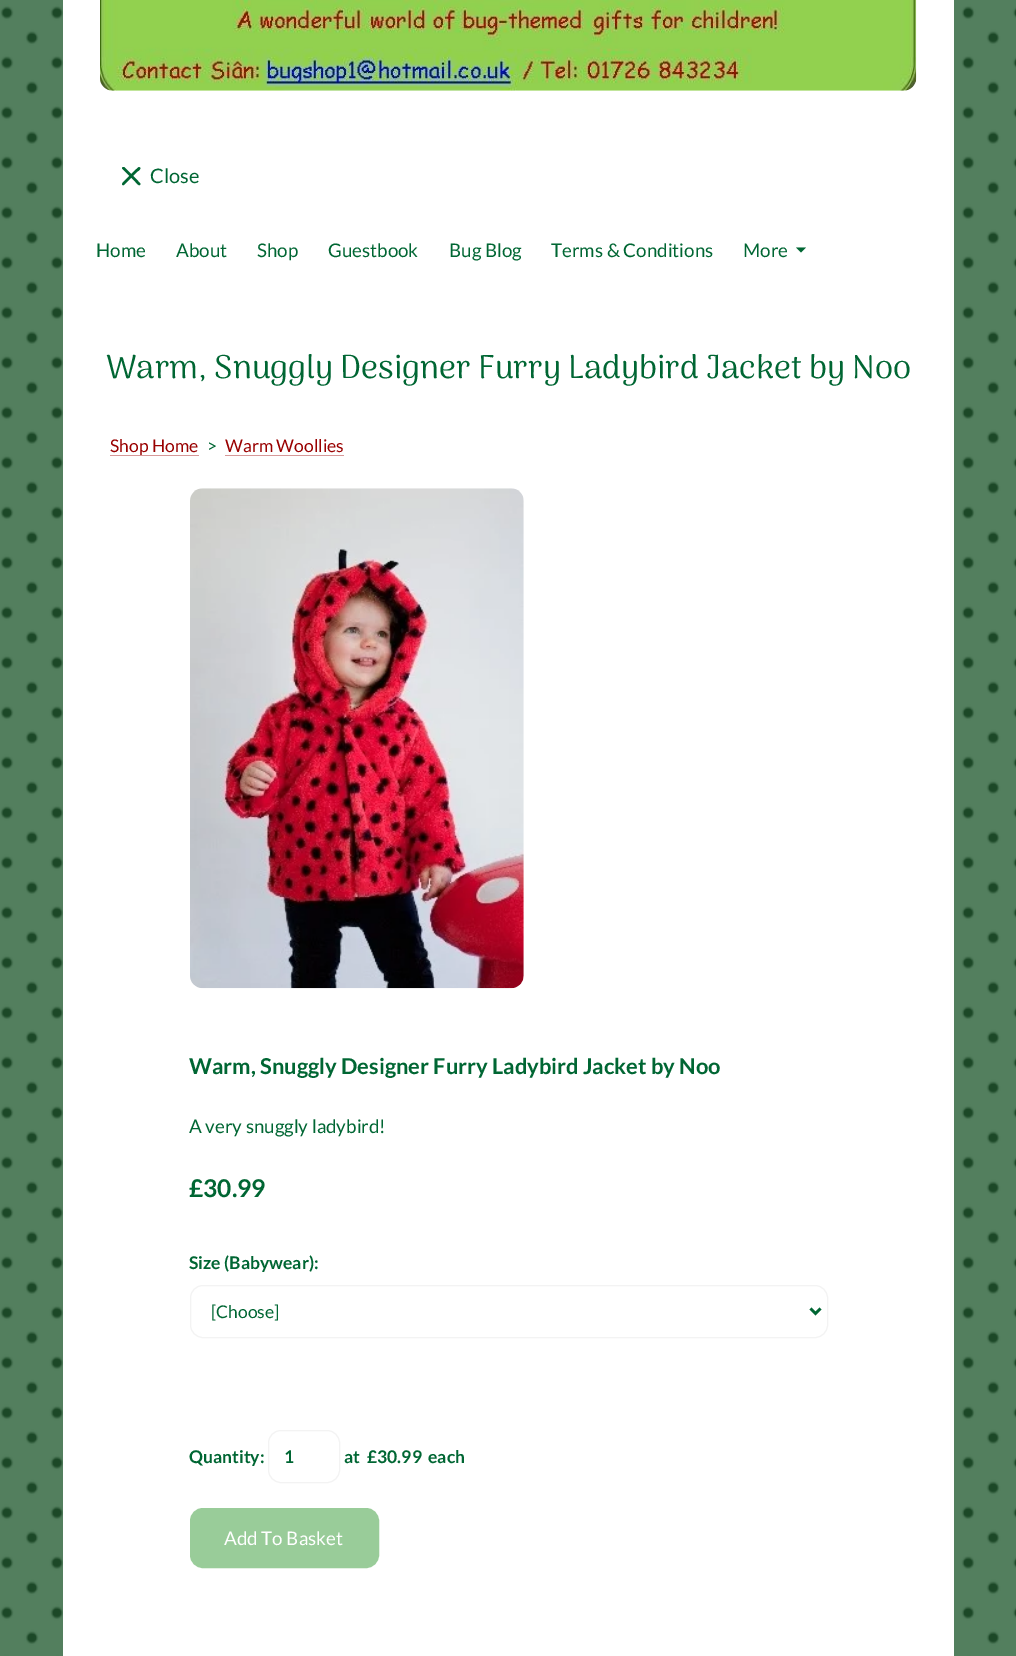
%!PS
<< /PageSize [1016 1656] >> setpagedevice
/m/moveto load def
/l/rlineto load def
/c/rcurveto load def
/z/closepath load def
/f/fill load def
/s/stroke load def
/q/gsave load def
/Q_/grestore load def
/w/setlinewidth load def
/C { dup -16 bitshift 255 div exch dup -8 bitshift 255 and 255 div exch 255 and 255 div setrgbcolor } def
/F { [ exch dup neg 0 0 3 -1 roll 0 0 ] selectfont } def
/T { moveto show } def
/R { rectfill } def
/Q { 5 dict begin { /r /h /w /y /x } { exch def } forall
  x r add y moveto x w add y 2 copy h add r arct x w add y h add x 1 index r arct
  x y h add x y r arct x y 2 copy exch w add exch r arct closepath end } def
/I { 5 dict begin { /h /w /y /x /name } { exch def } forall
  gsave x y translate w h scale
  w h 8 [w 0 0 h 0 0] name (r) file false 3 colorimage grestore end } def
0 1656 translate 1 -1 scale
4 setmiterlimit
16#094718 C
0 0 1016 1656 R
(1.rgb) 0 0 1016 1656 I
16#FFFFFF C
63 0 891 1656 R
(2.rgb) 100 0 817 91 I
16#006633 C
124 167 m 2 2 16.5 16 16.5 17 c -.5 1 l -1.5 1 -4 -2.5 -4.5 -3 c -13.5 -13.5 l 0 -1 .5 -1.5 1.5 -1.5 c z f
122.5 183 m 2 -2 15.5 -16 16.5 -16 c 1 .5 l 1.5 1.5 -2.5 4 -2.5 4 c -13.5 13.5 l -1 .5 -2 0 -2 -1 c z f
/Lato-Regular 20 F
(Close) 150 183 T
/Lato-Regular 18.75 F
(Home) 96 257 T
(About) 176 257 T
(Shop) 257 257 T
(Guestbook) 328 257 T
(Bug Blog) 449 257 T
(Terms & Conditions) 551 257 T
(More) 743 257 T
796 247.5 m 10 0 l -5 5 l z f
/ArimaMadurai-Regular 33.05 F
(Warm, Snuggly Designer Furry Ladybird Jacket by Noo) 106 378 T
/Lato-Regular 17.5 F
16#990000 C
(Shop Home) 110 452 T
16#D69999 C
110 455 89 1 R
16#006633 C
(>) 207 452 T
16#990000 C
(Warm Woollies) 225 452 T
16#D69999 C
225 455 119 1 R
(3.rgb) 190 488 334 501 I
/Lato-Bold 21.9 F
16#006633 C
(Warm, Snuggly Designer Furry Ladybird Jacket by Noo) 189 1074 T
/Lato-Regular 18.75 F
(A very snuggly ladybird!) 189 1133 T
/Lato-Bold 24.5 F
(£30.99) 189 1197 T
/Lato-Bold 17.5 F
(Size \(Babywear\):) 189 1269 T
16#F3F3F3 C
190.5 1285.5 637 52 12.5 Q s
16#006633 C
2.5 w
810.5 1308.5 m 5 5 l 5 -5 l s
/Lato-Regular 17.5 F
([Choose]) 211 1318 T
/Lato-Bold 17.5 F
(Quantity:) 189 1463 T
16#F3F3F3 C
1 w
268.5 1430.5 71 52 12.5 Q s
16#006633 C
(1) 284 1463 T
(at) 344 1463 T
(£30.99) 367 1463 T
(each) 428 1463 T
16#99CC99 C
191.5 1509.5 186 57 11.5 Q q f Q_
3 w
s
/Lato-Regular 18.75 F
16#FFFFFF C
(Add To Basket) 224 1545 T
showpage
